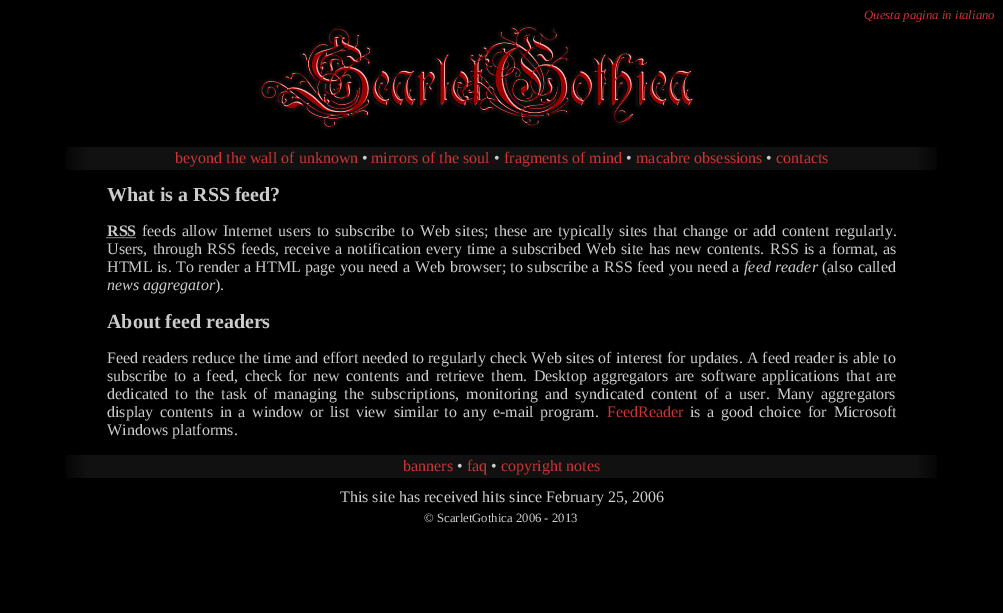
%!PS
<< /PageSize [1003 613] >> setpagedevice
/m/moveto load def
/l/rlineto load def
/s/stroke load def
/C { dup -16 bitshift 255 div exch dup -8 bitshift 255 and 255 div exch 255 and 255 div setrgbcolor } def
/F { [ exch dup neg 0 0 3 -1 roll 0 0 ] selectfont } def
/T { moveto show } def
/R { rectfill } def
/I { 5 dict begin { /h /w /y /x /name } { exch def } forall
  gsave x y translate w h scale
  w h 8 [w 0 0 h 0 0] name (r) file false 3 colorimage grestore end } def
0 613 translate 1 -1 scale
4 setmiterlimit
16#000000 C
0 0 1003 613 R
/LiberationSerif-Italic 12.75 F
16#CC3333 C
(Questa pagina in italiano) 864 19 T
(1.rgb) 258 25 437 105 I
(2.rgb) 66 147 21 23 I
16#111111 C
87 147 829 23 R
/LiberationSerif-Regular 16 F
16#CC3333 C
(beyond the wall of unknown) 175 163 T
16#CCCCCC C
(•) 362 163 T
16#CC3333 C
(mirrors of the soul) 371 163 T
16#CCCCCC C
(•) 494 163 T
16#CC3333 C
(fragments of mind) 504 163 T
16#CCCCCC C
(•) 626 163 T
16#CC3333 C
(macabre obsessions) 636 163 T
16#CCCCCC C
(•) 766 163 T
16#CC3333 C
(contacts) 776 163 T
(3.rgb) 916 147 21 23 I
/LiberationSerif-Bold 20 F
16#CCCCCC C
(What is a RSS feed?) 107 201 T
/LiberationSerif-Bold 16 F
(RSS) 107 236 T
[1 1] 0 setdash
106.5 237.5 m 29.5 0 l s
/LiberationSerif-Regular 16 F
142 236 m 1.75 0 32 (feeds allow Internet users to subscribe to Web sites; these are typically) widthshow
619 236 m 1.75 0 32 (sites that change or add content regularly.) widthshow
107 254 m 1.1 0 32 (Users, through RSS feeds, receive) widthshow
335 254 m 1.1 0 32 (a notification every time a subscribed Web site has new contents.) widthshow
770 254 m 1.1 0 32 (RSS is a format, as) widthshow
107 272 m .5 0 32 (HTML is. To render a HTML page you need a Web) widthshow
450 272 m .5 0 32 (browser; to subscribe a RSS feed you need a) widthshow
/LiberationSerif-Italic 16 F
744 272 m .5 0 32 (feed reader) widthshow
/LiberationSerif-Regular 16 F
822 272 m .5 0 32 (\(also called) widthshow
/LiberationSerif-Italic 16 F
(news aggregator) 107 290 T
/LiberationSerif-Regular 16 F
(\).) 215 290 T
/LiberationSerif-Bold 20 F
(About feed readers) 107 328 T
/LiberationSerif-Regular 16 F
107 363 m .1 0 32 (Feed readers reduce the time and effort needed to regularly check Web sites of interest for updates. A feed reader is able to) widthshow
107 381 m 2.5 0 32 (subscribe to a feed, check) widthshow
288 381 m 2.5 0 32 (for new contents and retrieve them. Desktop aggregators are software applications) widthshow
846 381 m 2.5 0 32 (that are) widthshow
107 399 m 3 0 32 (dedicated to the task of managing the subscriptions, monitoring) widthshow
545 399 m 3 0 32 (and syndicated content of a user. Many aggregators) widthshow
107 417 m 2.5 0 32 (display contents in a) widthshow
252 417 m 2.5 0 32 (window or list view similar to any e-mail program.) widthshow
16#CC3333 C
(FeedReader) 607 417 T
16#CCCCCC C
690 417 m 2.5 0 32 (is a good choice) widthshow
808 417 m 3 0 32 (for Microsoft) widthshow
(Windows platforms.) 107 435 T
(2.rgb) 66 455 21 23 I
16#111111 C
87 455 829 23 R
16#CC3333 C
(banners) 403 471 T
16#CCCCCC C
(•) 457 471 T
16#CC3333 C
(faq) 467 471 T
16#CCCCCC C
(•) 491 471 T
16#CC3333 C
(copyright notes) 501 471 T
(3.rgb) 916 455 21 23 I
16#CCCCCC C
(This site has received hits since February 25, 2006) 340 502 T
/LiberationSerif-Regular 12.75 F
(© ScarletGothica 2006 - 2013) 424 522 T
showpage
